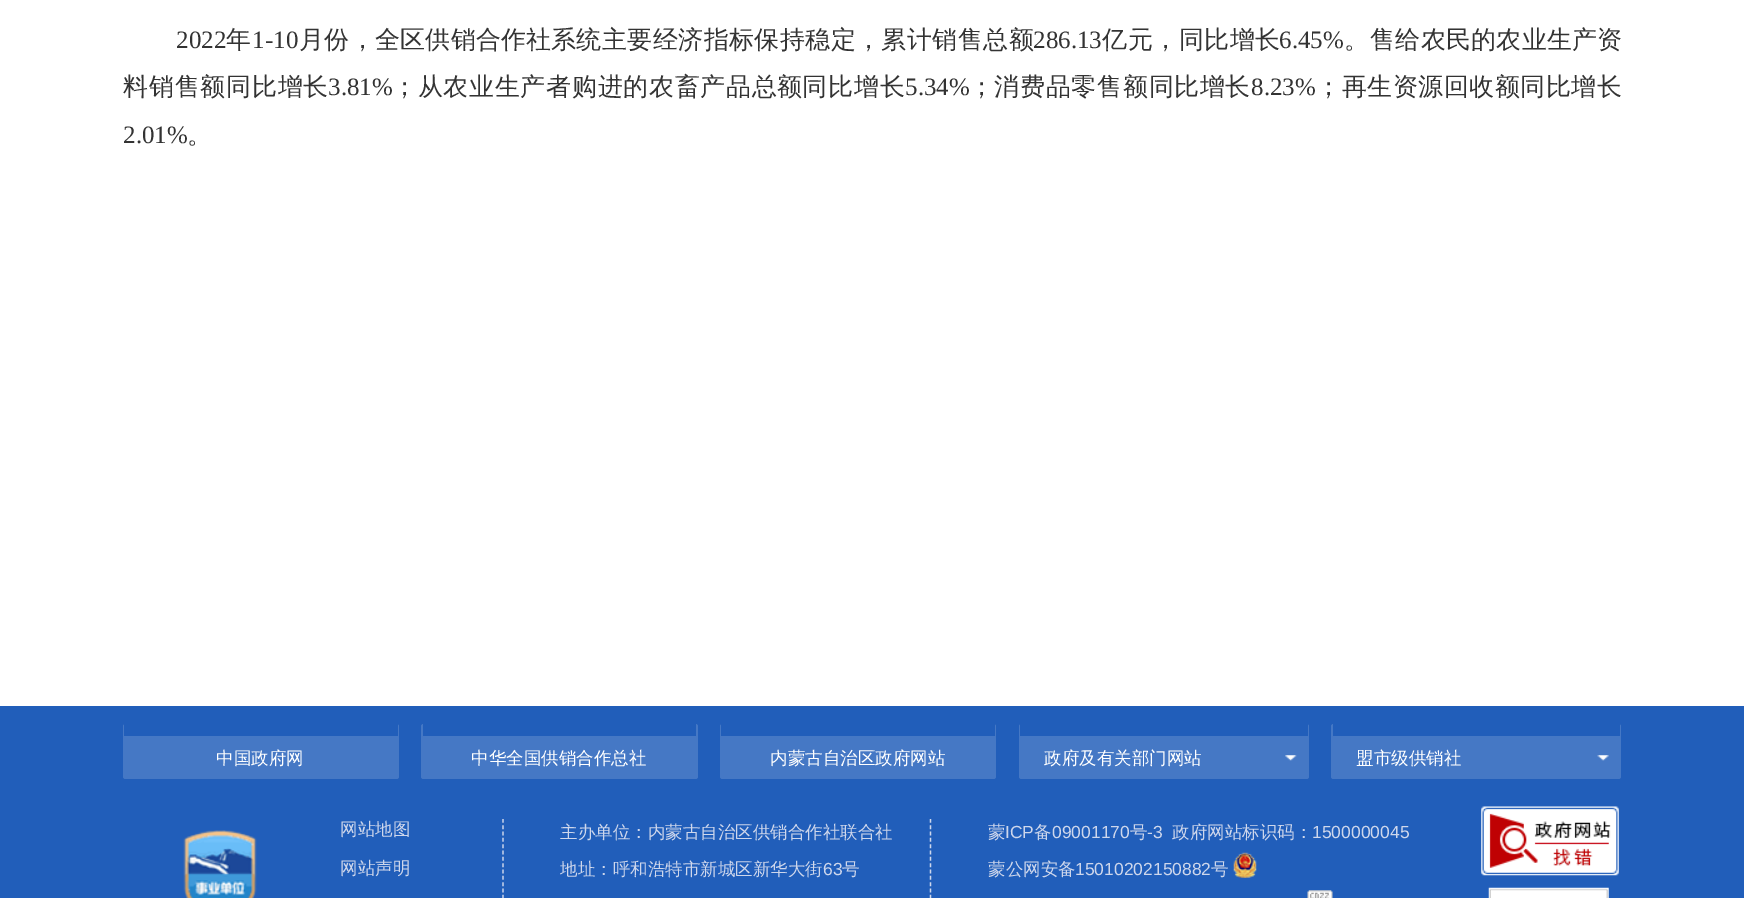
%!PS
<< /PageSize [1744 898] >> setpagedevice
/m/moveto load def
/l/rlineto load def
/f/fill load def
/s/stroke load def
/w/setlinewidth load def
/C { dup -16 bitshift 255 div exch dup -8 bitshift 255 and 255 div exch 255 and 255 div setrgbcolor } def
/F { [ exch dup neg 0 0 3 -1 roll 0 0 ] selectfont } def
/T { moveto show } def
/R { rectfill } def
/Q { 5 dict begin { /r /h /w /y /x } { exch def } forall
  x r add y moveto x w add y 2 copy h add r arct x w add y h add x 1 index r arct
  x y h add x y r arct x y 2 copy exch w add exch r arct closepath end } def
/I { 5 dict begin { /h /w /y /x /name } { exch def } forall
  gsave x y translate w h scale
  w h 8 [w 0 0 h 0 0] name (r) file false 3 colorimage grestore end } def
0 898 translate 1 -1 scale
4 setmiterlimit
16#FFFFFF C
0 0 1744 898 R
/LiberationSerif-Regular 25 F
16#333333 C
(2022) 176 48 T
/WenQuanYiZenHei-Medium 25 F
(年) 226 48 T
/LiberationSerif-Regular 25 F
252 48 m .25 0 (1-10) ashow
/WenQuanYiZenHei-Medium 25 F
299 48 m .25 0 (月份，全区供销合作社) ashow
(系统) 551 48 T
602 48 m .4 0 (主要经济指标保持稳定，) ashow
881 48 m .5 0 (累计销售总额) ashow
/LiberationSerif-Regular 25 F
(286.13) 1033 48 T
/WenQuanYiZenHei-Medium 25 F
1102 48 m .5 0 (亿元，同比增长) ashow
/LiberationSerif-Regular 25 F
(6.45%) 1279 48 T
/WenQuanYiZenHei-Medium 25 F
(。) 1344 48 T
1370 48 m .25 0 (售给农民的农业生产资) ashow
123 95 m .75 0 (料销售额同比增长) ashow
/LiberationSerif-Regular 25 F
(3.81%) 328 95 T
/WenQuanYiZenHei-Medium 25 F
392 95 m .7 0 (；从农业生产者购进的农畜产品总额) ashow
802 95 m 1 0 (同比增长) ashow
/LiberationSerif-Regular 25 F
(5.34%) 905 95 T
/WenQuanYiZenHei-Medium 25 F
(；) 969 95 T
994 95 m .75 0 (消费品零售额同比) ashow
(增长) 1200 95 T
/LiberationSerif-Regular 25 F
(8.23) 1251 95 T
1295 95 m .5 0 (%) ashow
/WenQuanYiZenHei-Medium 25 F
1316 95 m .5 0 (；再生资源回收额同比增长) ashow
/LiberationSerif-Regular 25 F
(2.01%) 123 143 T
/WenQuanYiZenHei-Medium 25 F
(。) 187 143 T
16#215EBA C
0 706 1744 192 R
16#4578C5 C
123 724 276 55 2.5 Q f
16#215EBA C
124 724 274 12 R
/WenQuanYiZenHei-Medium 17.5 F
16#FFFFFF C
(中国政府网) 216 764 T
16#4578C5 C
421 724 277 55 2.5 Q f
16#215EBA C
423 724 273 12 R
16#FFFFFF C
(中华全国供销合作总社) 471 764 T
16#4578C5 C
720 724 276 55 2.5 Q f
16#215EBA C
721 724 274 12 R
16#FFFFFF C
(内蒙古自治区政府网站) 770 764 T
16#4578C5 C
1019 724 290 55 2.5 Q f
(1.rgb) 1285 755 12 6 I
16#215EBA C
1020 724 288 12 R
16#FFFFFF C
(政府及有关部门网站) 1044 764 T
16#4578C5 C
1331 724 290 55 2.5 Q f
(2.rgb) 1597 755 12 6 I
16#215EBA C
1333 724 287 12 R
16#FFFFFF C
(盟市级供销社) 1356 764 T
(3.rgb) 183 830 74 68 I
16#CED7EC C
1.2 w
[3.75 2.58] 0 setdash
503 819 m 0 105 l s
(网站地图) 340 835 T
(网站声明) 340 874 T
930.5 819 m 0 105 l s
(主办单位：内蒙古自治区供销合作社联合社) 560 838 T
(地址：呼和浩特市新城区新华大街) 560 875 T
/LiberationSans-Regular 17.5 F
(63) 823 875 T
/WenQuanYiZenHei-Medium 17.5 F
(号) 842 875 T
(蒙) 988 838 T
/LiberationSans-Regular 17.5 F
(ICP) 1005 838 T
/WenQuanYiZenHei-Medium 17.5 F
(备) 1034 838 T
/LiberationSans-Regular 17.5 F
(09001170) 1052 838 T
/WenQuanYiZenHei-Medium 17.5 F
(号) 1130 838 T
/LiberationSans-Regular 17.5 F
(-3) 1147 838 T
/WenQuanYiZenHei-Medium 17.5 F
(政府网站标识码：) 1172 838 T
/LiberationSans-Regular 17.5 F
(1500000045) 1312 838 T
/WenQuanYiZenHei-Medium 17.5 F
(蒙公网安备) 988 875 T
/LiberationSans-Regular 17.5 F
(15010202150882) 1075 875 T
/WenQuanYiZenHei-Medium 17.5 F
(号) 1211 875 T
(4.rgb) 1233 852 24 26 I
(5.rgb) 1307 890 26 8 I
(6.rgb) 1481 806 138 70 I
(7.rgb) 1488 887 121 11 I
showpage
